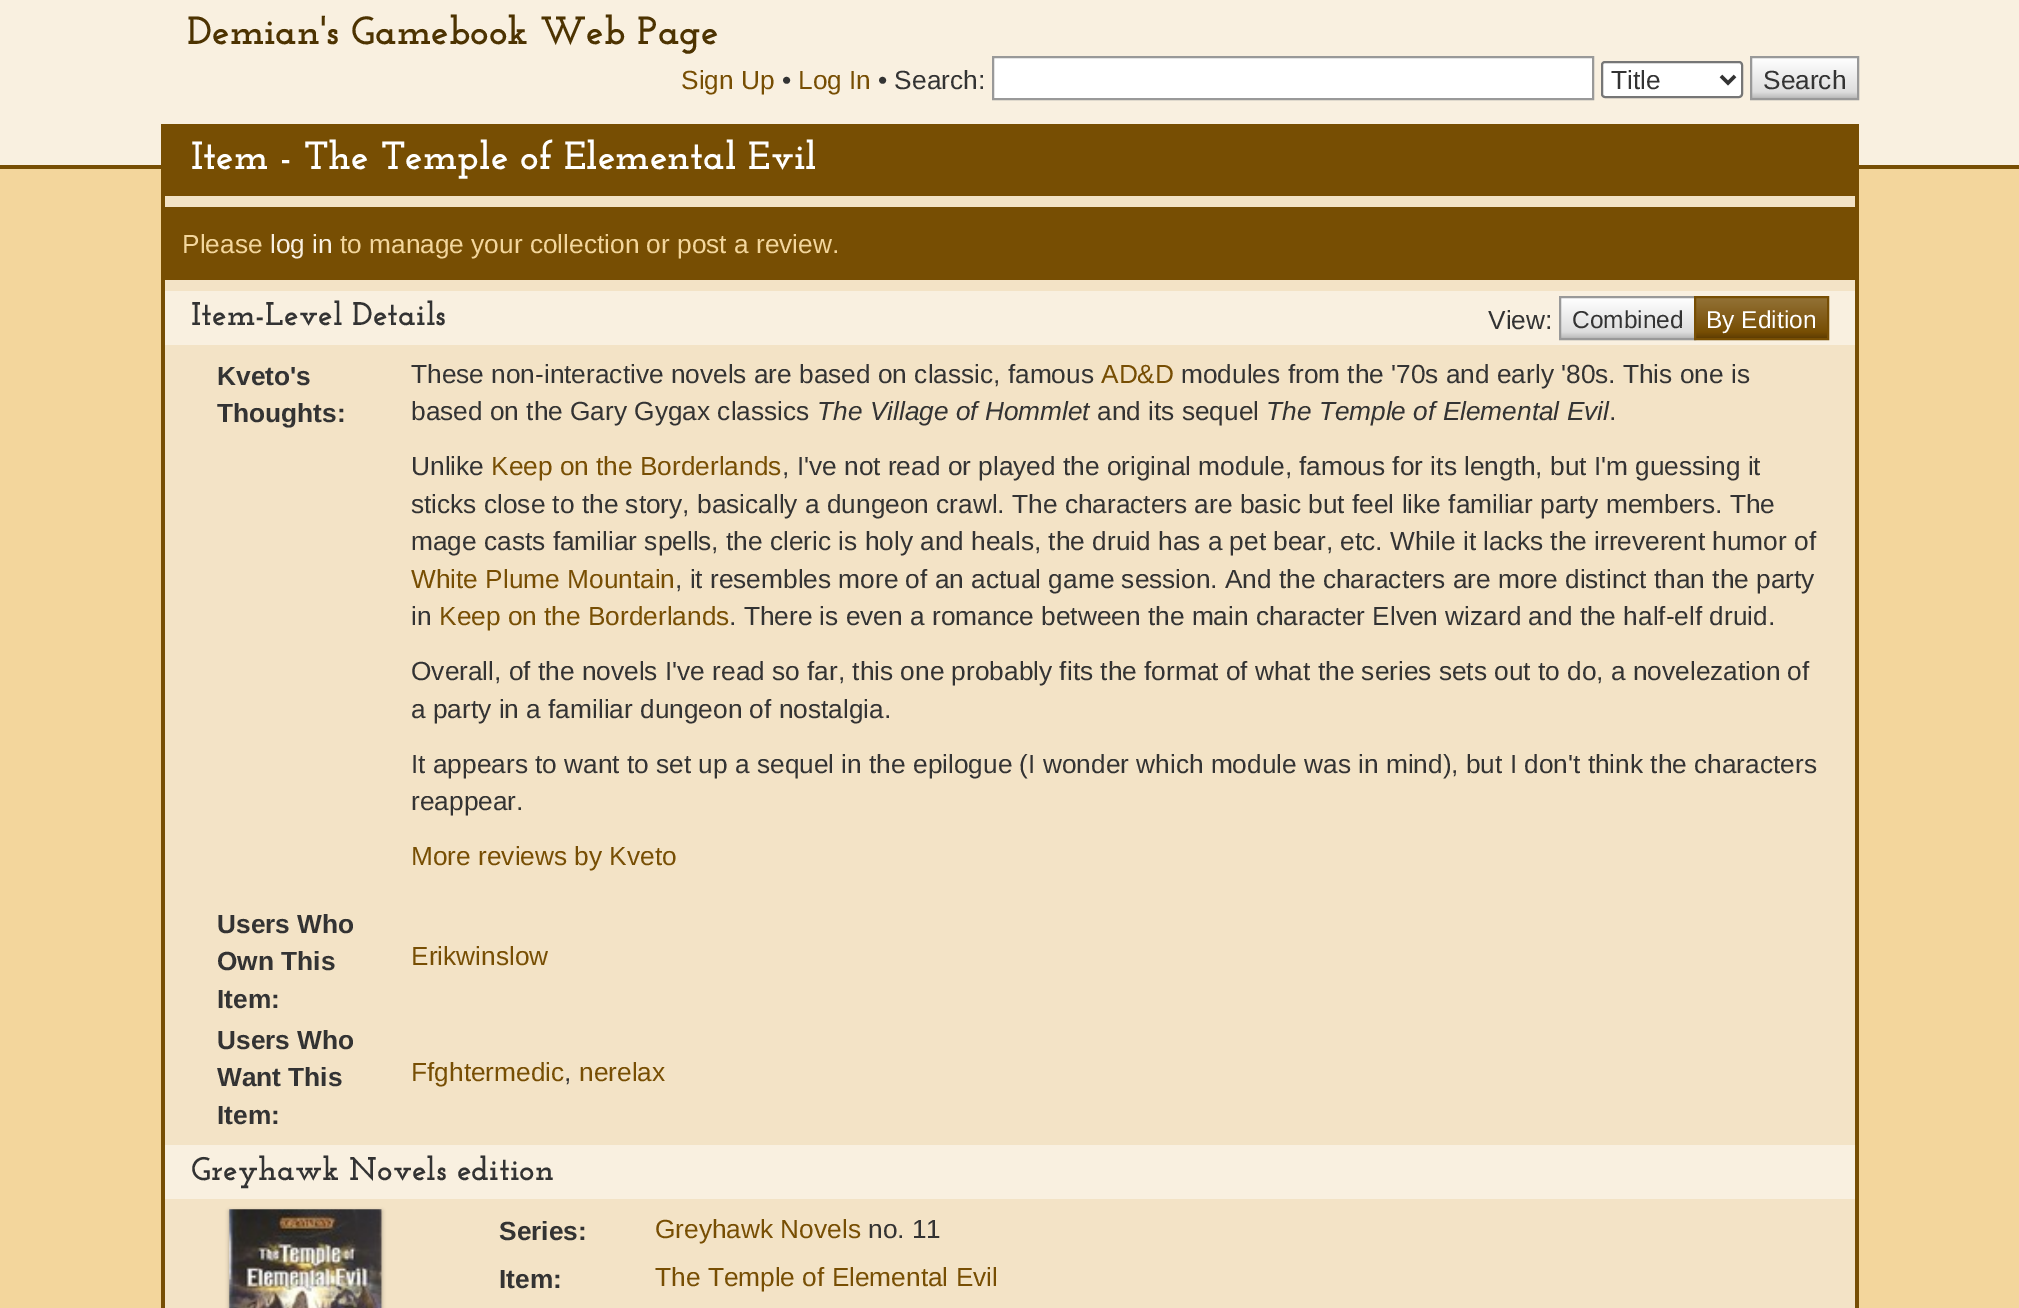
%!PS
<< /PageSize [2019 1308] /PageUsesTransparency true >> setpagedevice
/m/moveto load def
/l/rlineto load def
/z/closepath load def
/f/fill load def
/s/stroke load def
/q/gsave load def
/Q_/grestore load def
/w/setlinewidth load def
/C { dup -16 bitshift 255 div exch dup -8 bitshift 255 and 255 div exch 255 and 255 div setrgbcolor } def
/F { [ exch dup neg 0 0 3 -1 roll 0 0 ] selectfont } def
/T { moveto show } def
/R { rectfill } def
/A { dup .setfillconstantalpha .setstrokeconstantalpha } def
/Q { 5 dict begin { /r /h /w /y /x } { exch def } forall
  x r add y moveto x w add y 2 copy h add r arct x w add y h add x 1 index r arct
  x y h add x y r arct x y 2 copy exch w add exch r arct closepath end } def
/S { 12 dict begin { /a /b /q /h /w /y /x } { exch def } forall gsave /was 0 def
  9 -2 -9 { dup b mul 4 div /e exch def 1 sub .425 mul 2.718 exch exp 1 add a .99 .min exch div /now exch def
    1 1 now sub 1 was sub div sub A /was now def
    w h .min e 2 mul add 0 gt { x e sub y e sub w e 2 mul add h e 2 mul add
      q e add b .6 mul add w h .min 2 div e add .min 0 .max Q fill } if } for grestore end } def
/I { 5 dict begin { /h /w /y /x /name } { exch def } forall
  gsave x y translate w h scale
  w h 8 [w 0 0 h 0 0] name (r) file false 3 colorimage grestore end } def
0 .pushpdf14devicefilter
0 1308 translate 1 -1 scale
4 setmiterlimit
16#F3D69C C
0 0 2019 1308 R
16#F9F0E0 C
0 0 2019 165 R
16#774E03 C
0 165 2019 4 R
/JosefinSlab-Bold 39.4 F
16#4D3301 C
(Demian's Gamebook Web Page) 187 44 T
/LiberationSans-Regular 26.25 F
16#774E03 C
(Sign Up) 681 89 T
16#333333 C
(•) 782 89 T
16#774E03 C
(Log In) 798 89 T
16#333333 C
(• Search:) 878 89 T
16#FFFFFF C
993 57 m 600 0 l 0 42 l -600 0 l z q f Q_
16#999999 C
2 w
s
16#FFFFFF C
1602 62 140 35 3 Q q f Q_
16#767676 C
s
16#333333 C
3.5 w
1721 76 m 7 7 l 7 -7 l s
(Title) 1611 89 T
q 1752 58 m 105 0 l 0 40 l -105 0 l z clip newpath
<< /ShadingType 2 /ColorSpace /DeviceRGB /Coords [1804 58 1804 98] /Extend [true true] /Function << /FunctionType 3 /Domain [0 1] /Functions [<< /FunctionType 2 /Domain [0 1] /C0 [1 1 1] /C1 [.867 .867 .867] /N 1 >> << /FunctionType 2 /Domain [0 1] /C0 [.867 .867 .867] /C1 [.733 .733 .733] /N 1 >>] /Bounds [.85] /Encode [0 1 0 1] >> >> shfill Q_
16#999999 C
2 w
1751 57 107 42 rectstroke
16#333333 C
(Search) 1763 89 T
16#F3E3C6 C
165 196 1690 1112 R
16#774E03 C
161 124 1698 72 R
/JosefinSlab-Bold 39.4 F
16#FFFFFF C
(Item - The Temple of Elemental Evil) 191 169 T
16#774E03 C
1855 196 4 1112 R
161 196 4 1112 R
165 207 1690 73 R
/LiberationSans-Regular 26.25 F
16#F3D69C C
(Please) 182 253 T
16#F9F0E0 C
(log in) 270 253 T
16#F3D69C C
(to manage your collection or post a review.) 340 253 T
16#F9F0E0 C
165 291 1690 54 R
/JosefinSlab-Bold 32.75 F
16#333333 C
(Item-Level Details) 191 325 T
/LiberationSans-Regular 26.25 F
(View:) 1488 329 T
q 1561 298 m 133 0 l 0 40 l -133 0 l z clip newpath
<< /ShadingType 2 /ColorSpace /DeviceRGB /Coords [1628 298 1628 338] /Extend [true true] /Function << /FunctionType 3 /Domain [0 1] /Functions [<< /FunctionType 2 /Domain [0 1] /C0 [1 1 1] /C1 [.867 .867 .867] /N 1 >> << /FunctionType 2 /Domain [0 1] /C0 [.867 .867 .867] /C1 [.733 .733 .733] /N 1 >>] /Bounds [.85] /Encode [0 1 0 1] >> >> shfill Q_
16#999999 C
1560 297 135 42 rectstroke
/LiberationSans-Regular 24.5 F
16#333333 C
(Combined) 1572 328 T
q 1696 298 m 131 0 l 0 40 l -131 0 l z clip newpath
<< /ShadingType 2 /ColorSpace /DeviceRGB /Coords [1761 298 1761 338] /Extend [true true] /Function << /FunctionType 3 /Domain [0 1] /Functions [<< /FunctionType 2 /Domain [0 1] /C0 [.573 .443 .208] /C1 [.467 .306 .012] /N 1 >> << /FunctionType 2 /Domain [0 1] /C0 [.467 .306 .012] /C1 [.373 .243 .008] /N 1 >>] /Bounds [.85] /Encode [0 1 0 1] >> >> shfill Q_
16#774E03 C
1695 297 133 42 rectstroke
16#FFFFFF C
(By Edition) 1706 328 T
/LiberationSans-Bold 26.25 F
16#333333 C
(Kveto's) 217 385 T
(Thoughts:) 217 422 T
/LiberationSans-Regular 26.25 F
(These non-interactive novels are based on classic, famous) 411 383 T
16#774E03 C
(AD&D) 1101 383 T
16#333333 C
(modules from the '70s and early '80s. This one is) 1181 383 T
(based on the Gary Gygax classics) 411 420 T
/LiberationSans-Italic 26.25 F
(The Village of Hommlet) 817 420 T
/LiberationSans-Regular 26.25 F
(and its sequel) 1097 420 T
/LiberationSans-Italic 26.25 F
(The Temple of Elemental Evil) 1266 420 T
/LiberationSans-Regular 26.25 F
(.) 1609 420 T
(Unlike) 411 475 T
16#774E03 C
(Keep on the Borderlands) 491 475 T
16#333333 C
(, I've not read or played the original module, famous for its length, but I'm guessing it) 782 475 T
(sticks close to the story, basically a dungeon crawl. The characters are basic but feel like familiar party members. The) 411 513 T
(mage casts familiar spells, the cleric is holy and heals, the druid has a pet bear, etc. While it lacks the irreverent humor of) 411 550 T
16#774E03 C
(White Plume Mountain) 411 588 T
16#333333 C
(, it resembles more of an actual game session. And the characters are more distinct than the party) 675 588 T
(in) 411 625 T
16#774E03 C
(Keep on the Borderlands) 439 625 T
16#333333 C
(. There is even a romance between the main character Elven wizard and the half-elf druid.) 729 625 T
(Overall, of the novels I've read so far, this one probably fits the format of what the series sets out to do, a novelezation of) 411 680 T
(a party in a familiar dungeon of nostalgia.) 411 718 T
(It appears to want to set up a sequel in the epilogue \(I wonder which module was in mind\), but I don't think the characters) 411 773 T
(reappear.) 411 810 T
16#774E03 C
(More reviews by Kveto) 411 865 T
/LiberationSans-Bold 26.25 F
16#333333 C
(Users Who) 217 933 T
(Own This) 217 970 T
(Item:) 217 1008 T
/LiberationSans-Regular 26.25 F
16#774E03 C
(Erikwinslow) 411 965 T
/LiberationSans-Bold 26.25 F
16#333333 C
(Users Who) 217 1049 T
(Want This) 217 1086 T
(Item:) 217 1124 T
/LiberationSans-Regular 26.25 F
16#774E03 C
(Ffghtermedic) 411 1081 T
16#333333 C
(,) 564 1081 T
16#774E03 C
(nerelax) 579 1081 T
16#F9F0E0 C
165 1145 1690 54 R
/JosefinSlab-Bold 32.75 F
16#333333 C
(Greyhawk Novels edition) 191 1180 T
16#000000 C
229 1211 153 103 0 2 .3 S
(1.rgb) 229 1209 153 99 I
/LiberationSans-Bold 26.25 F
16#333333 C
(Series:) 499 1240 T
/LiberationSans-Regular 26.25 F
16#774E03 C
(Greyhawk Novels) 655 1238 T
16#333333 C
(no. 11) 868 1238 T
/LiberationSans-Bold 26.25 F
(Item:) 499 1288 T
/LiberationSans-Regular 26.25 F
16#774E03 C
(The Temple of Elemental Evil) 655 1286 T
.poppdf14devicefilter showpage
